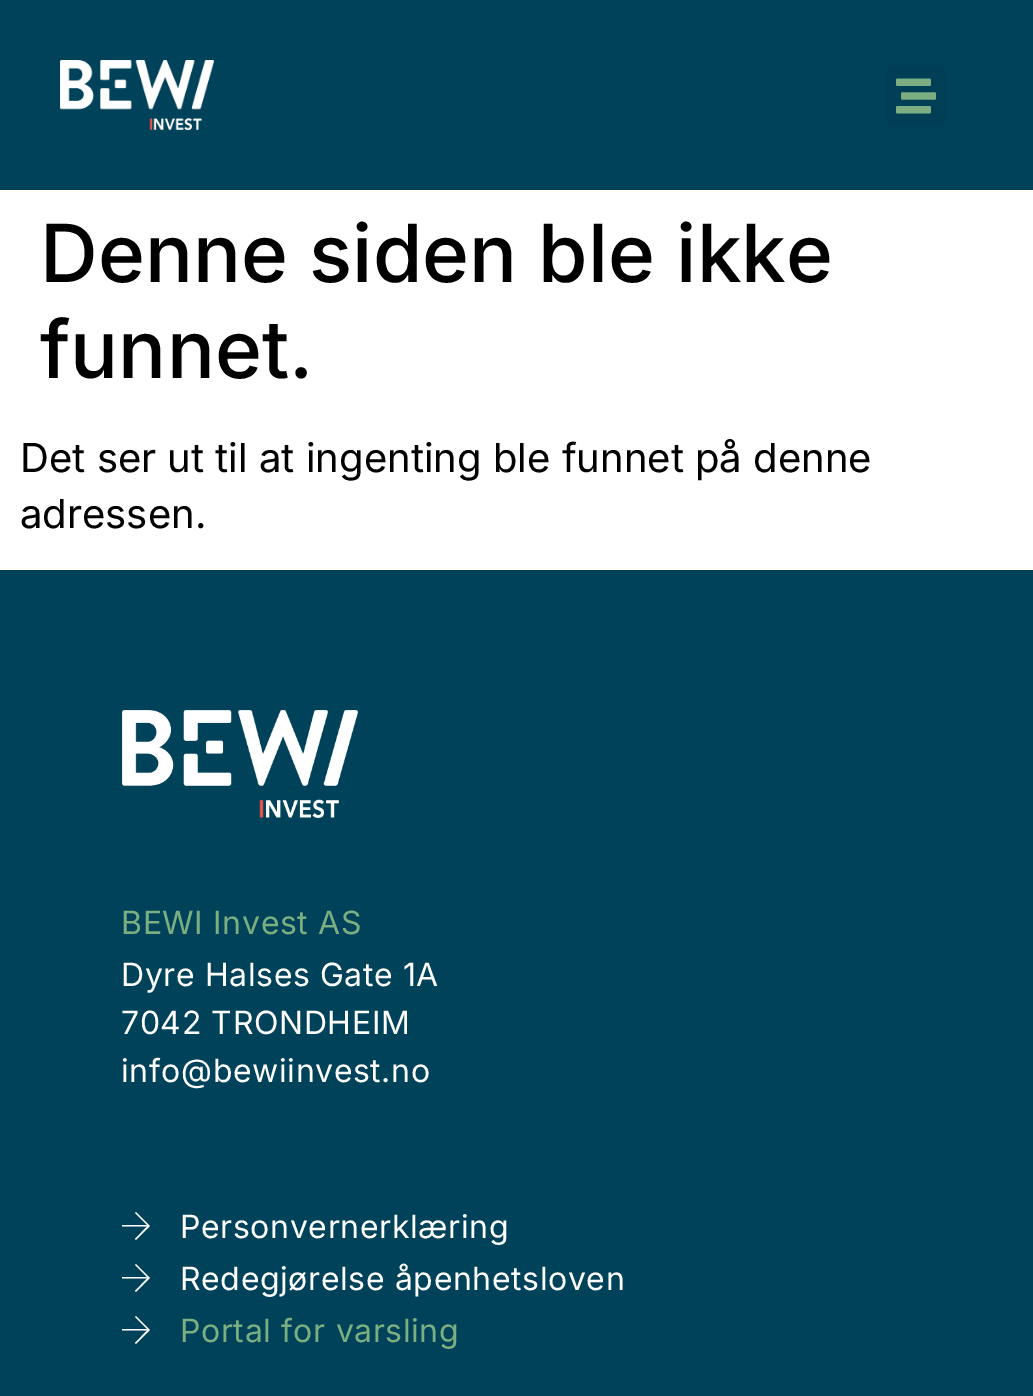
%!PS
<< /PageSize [1033 1396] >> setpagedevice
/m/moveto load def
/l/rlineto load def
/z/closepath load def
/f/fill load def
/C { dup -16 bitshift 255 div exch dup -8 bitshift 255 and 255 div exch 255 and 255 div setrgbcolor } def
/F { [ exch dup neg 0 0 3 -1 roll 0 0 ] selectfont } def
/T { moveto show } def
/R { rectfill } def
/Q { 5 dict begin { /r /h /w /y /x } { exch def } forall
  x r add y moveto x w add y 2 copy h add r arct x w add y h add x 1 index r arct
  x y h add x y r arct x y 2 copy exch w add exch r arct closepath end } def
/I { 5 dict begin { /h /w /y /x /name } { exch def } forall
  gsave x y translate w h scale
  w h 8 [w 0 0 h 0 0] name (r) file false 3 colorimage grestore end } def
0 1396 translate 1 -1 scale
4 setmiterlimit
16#FFFFFF C
0 0 1033 1396 R
16#004259 C
0 0 1033 190 R
(1.rgb) 60 60 154 70 I
16#003F55 C
886 66 60 60 6 Q f
(2.rgb) 896 78 40 36 I
/Inter-Medium 80 F
16#000000 C
(Denne siden ble ikke) 40 282 T
(funnet.) 40 378 T
/Inter-Regular 40 F
(Det ser ut til at ingenting ble funnet på denne) 20 472 T
(adressen.) 20 528 T
16#004259 C
0 570 1033 826 R
(3.rgb) 122 710 236 108 I
/Inter-Regular 32 F
16#7BAE80 C
121 934 m .6 0 (BEWI Invest AS) ashow
16#FFFFFF C
121 986 m .6 0 (Dyre Halses Gate 1A) ashow
121 1034 m .6 0 (7042 TRONDHEIM) ashow
121 1082 m .6 0 (info@bewiinvest.no) ashow
122 1226.5 m 25 0 l -12 12.5 l 1 1 l 14 -14 l -14 -14 l -1 1 l 12 12 l -25 0 l z f
180 1238 m .6 0 (Personvernerklæring) ashow
122 1278.5 m 25 0 l -12 12.5 l 1 1 l 14 -14 l -14 -14 l -1 1 l 12 12 l -25 0 l z f
180 1290 m .6 0 (Redegjørelse åpenhetsloven) ashow
122 1330.5 m 25 0 l -12 12.5 l 1 1 l 14 -14 l -14 -14 l -1 1 l 12 12 l -25 0 l z f
16#7BAE80 C
180 1342 m .6 0 (Portal for varsling) ashow
showpage
